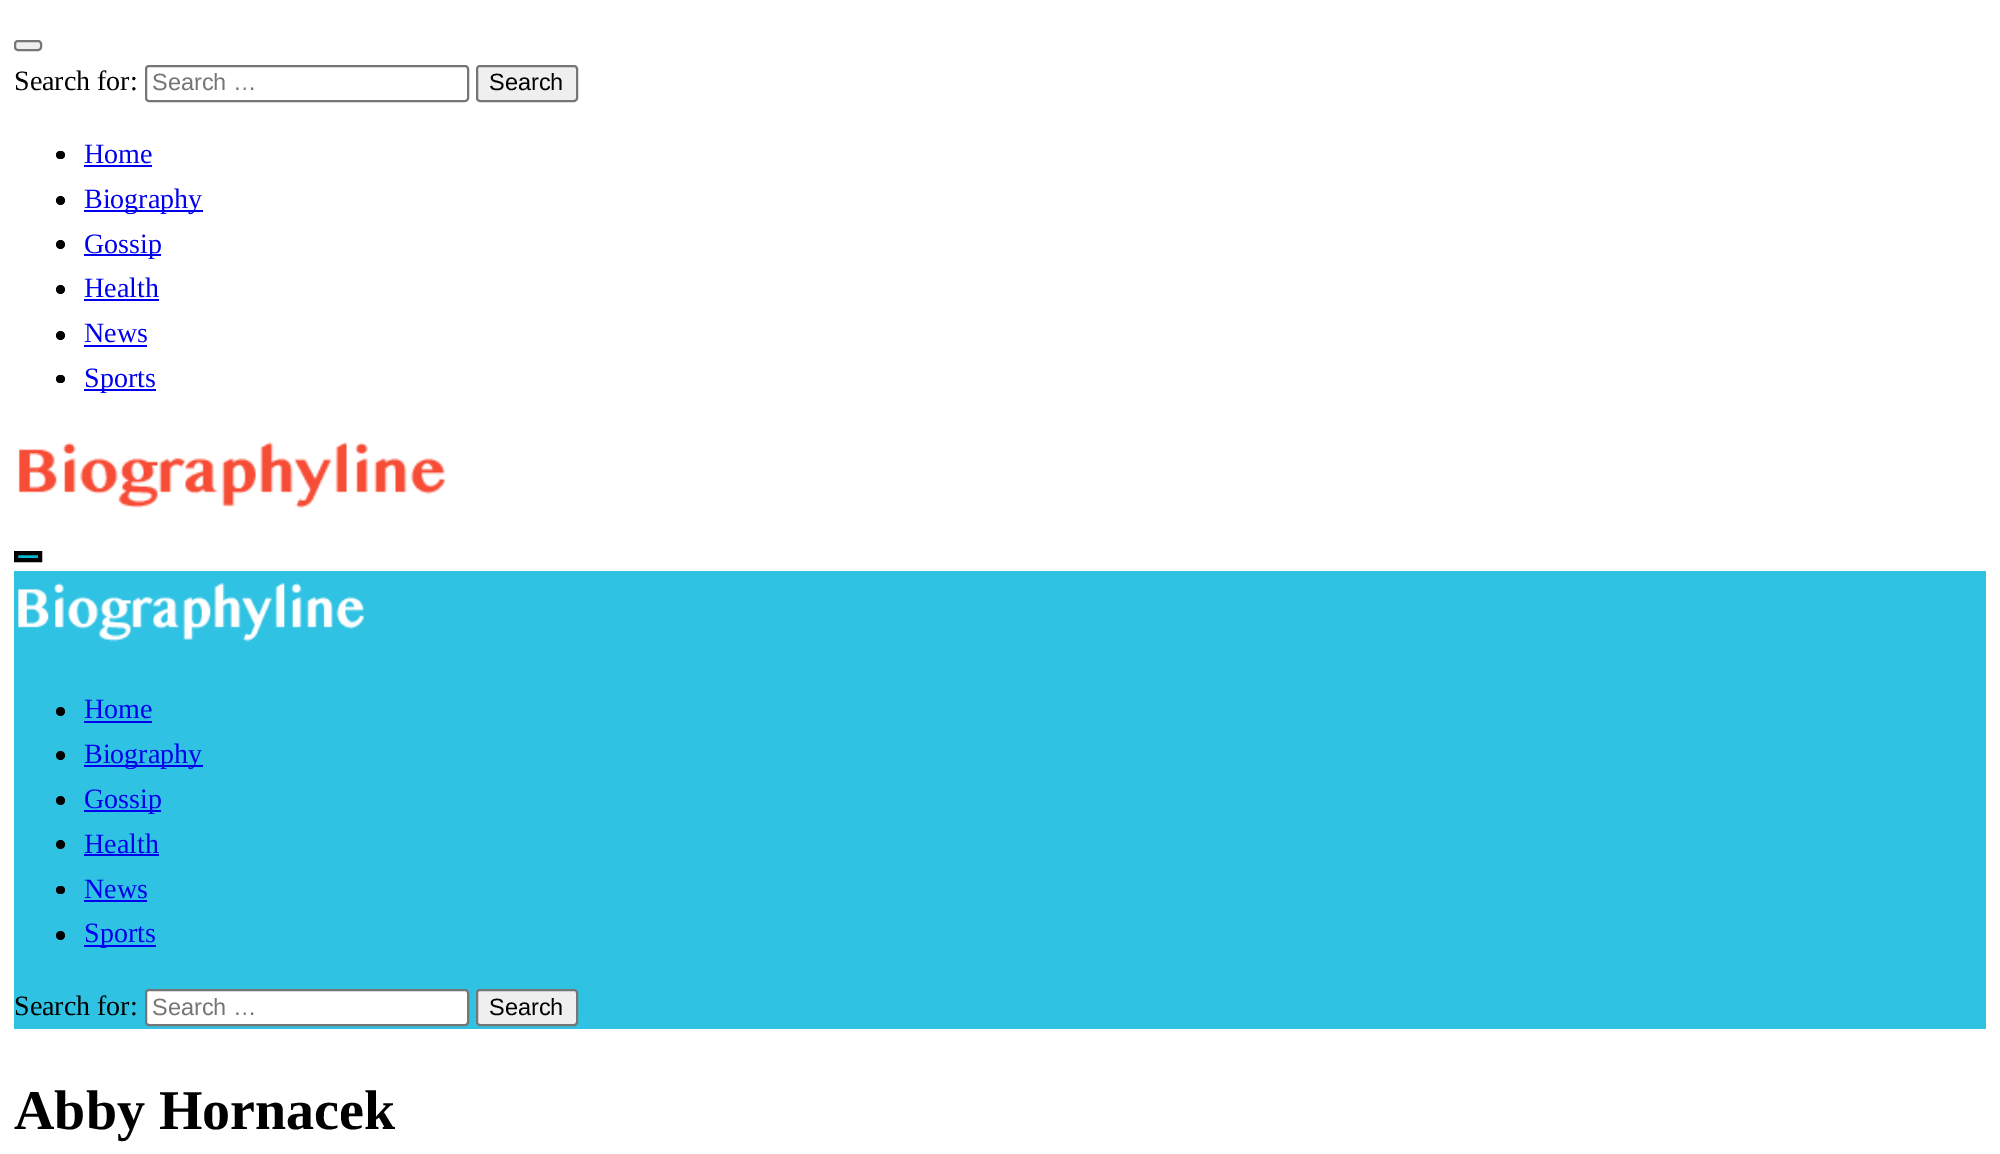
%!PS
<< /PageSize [2000 1154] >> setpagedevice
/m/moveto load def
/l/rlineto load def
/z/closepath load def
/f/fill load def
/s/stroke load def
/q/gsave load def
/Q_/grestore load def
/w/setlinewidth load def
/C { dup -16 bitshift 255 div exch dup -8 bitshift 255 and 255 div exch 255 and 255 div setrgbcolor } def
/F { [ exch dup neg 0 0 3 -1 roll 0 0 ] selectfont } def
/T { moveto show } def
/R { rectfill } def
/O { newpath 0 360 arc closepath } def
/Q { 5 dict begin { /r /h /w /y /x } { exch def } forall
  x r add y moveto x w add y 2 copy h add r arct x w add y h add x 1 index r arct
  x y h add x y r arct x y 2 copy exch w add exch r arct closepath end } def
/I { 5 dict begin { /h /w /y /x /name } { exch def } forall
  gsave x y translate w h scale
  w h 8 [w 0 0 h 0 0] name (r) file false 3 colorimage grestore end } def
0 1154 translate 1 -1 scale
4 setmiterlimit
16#FFFFFF C
0 0 2000 1154 R
16#EFEFEF C
15 41 26 9 3 Q q f Q_
16#767676 C
2 w
s
/LiberationSerif-Regular 28 F
16#000000 C
(Search for:) 14 90 T
16#767676 C
146 66 322 35 3 Q s
/LiberationSans-Regular 23.5 F
16#757575 C
(Search …) 152 90 T
16#EFEFEF C
477 66 100 35 3 Q q f Q_
16#767676 C
s
16#000000 C
(Search) 489 90 T
56 151 9 8 4 Q f
/LiberationSerif-Regular 28 F
16#0000EE C
(Home) 84 163 T
84 165 68 2 R
16#000000 C
60.5 200.5 4.5 O f
16#0000EE C
84 210 119 2 R
(Biography) 84 208 T
16#000000 C
60.5 244.5 4.5 O f
16#0000EE C
84 254 77 2 R
(Gossip) 84 253 T
16#000000 C
60.5 289.5 4.5 O f
16#0000EE C
(Health) 84 297 T
84 299 75 2 R
16#000000 C
60.5 335.5 4.5 O f
16#0000EE C
(News) 84 342 T
84 345 63 2 R
16#000000 C
56 375 9 8 4 Q f
16#0000EE C
84 389 72 2 R
(Sports) 84 387 T
(1.rgb) 18 442 427 66 I
16#00BCD4 C
16 553 m 24 0 l 0 7 l -24 0 l z q f Q_
16#000000 C
4 w
s
16#2FC2E3 C
14 571 1972 458 R
(2.rgb) 18 582 346 60 I
16#000000 C
60.5 711.5 4.5 O f
16#0000EE C
(Home) 84 718 T
84 721 68 2 R
16#000000 C
60.5 755.5 4.5 O f
16#0000EE C
84 765 119 2 R
(Biography) 84 763 T
16#000000 C
60.5 800.5 4.5 O f
16#0000EE C
84 810 77 2 R
(Gossip) 84 808 T
16#000000 C
60.5 844.5 4.5 O f
16#0000EE C
(Health) 84 853 T
84 854 75 2 R
16#000000 C
56 886 9 8 4 Q f
16#0000EE C
(News) 84 898 T
84 900 63 2 R
16#000000 C
60.5 935.5 4.5 O f
16#0000EE C
84 945 72 2 R
(Sports) 84 942 T
16#000000 C
(Search for:) 14 1015 T
16#FFFFFF C
146 990 322 35 3 Q q f Q_
16#767676 C
2 w
s
/LiberationSans-Regular 23.5 F
16#757575 C
(Search …) 152 1015 T
16#EFEFEF C
477 990 100 35 3 Q q f Q_
16#767676 C
s
16#000000 C
(Search) 489 1015 T
/LiberationSerif-Bold 56 F
(Abby Hornacek) 14 1129 T
showpage
